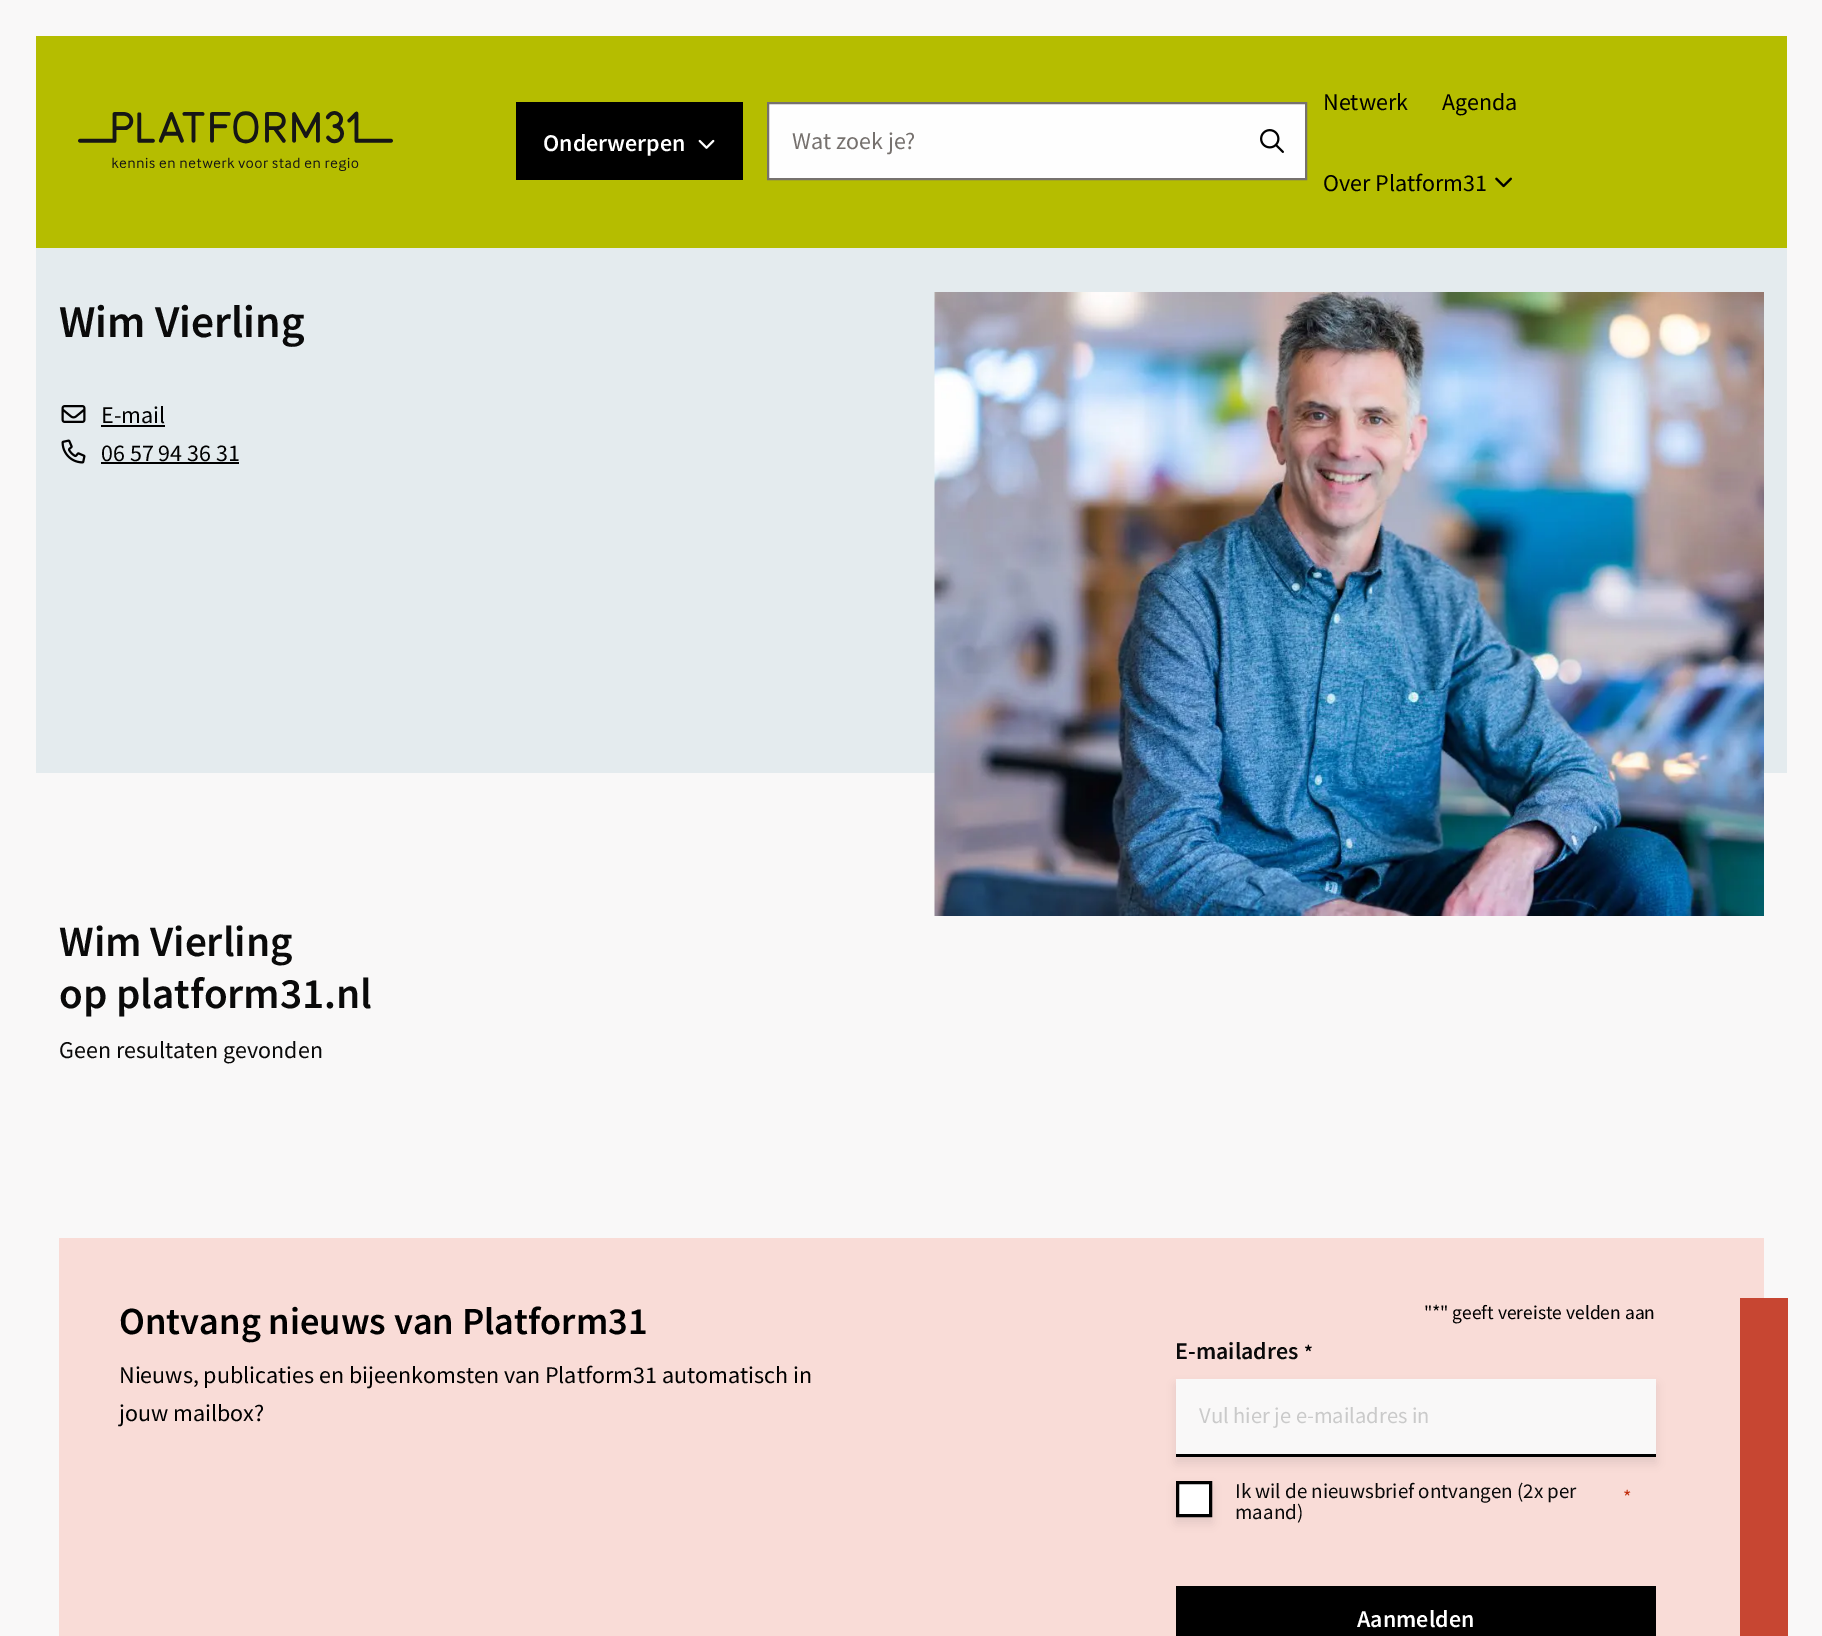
%!PS
<< /PageSize [1822 1636] /PageUsesTransparency true >> setpagedevice
/m/moveto load def
/l/rlineto load def
/z/closepath load def
/f/fill load def
/s/stroke load def
/q/gsave load def
/Q_/grestore load def
/w/setlinewidth load def
/C { dup -16 bitshift 255 div exch dup -8 bitshift 255 and 255 div exch 255 and 255 div setrgbcolor } def
/F { [ exch dup neg 0 0 3 -1 roll 0 0 ] selectfont } def
/T { moveto show } def
/R { rectfill } def
/A { dup .setfillconstantalpha .setstrokeconstantalpha } def
/Q { 5 dict begin { /r /h /w /y /x } { exch def } forall
  x r add y moveto x w add y 2 copy h add r arct x w add y h add x 1 index r arct
  x y h add x y r arct x y 2 copy exch w add exch r arct closepath end } def
/S { 12 dict begin { /a /b /q /h /w /y /x } { exch def } forall gsave /was 0 def
  9 -2 -9 { dup b mul 4 div /e exch def 1 sub .425 mul 2.718 exch exp 1 add a .99 .min exch div /now exch def
    1 1 now sub 1 was sub div sub A /was now def
    w h .min e 2 mul add 0 gt { x e sub y e sub w e 2 mul add h e 2 mul add
      q e add b .6 mul add w h .min 2 div e add .min 0 .max Q fill } if } for grestore end } def
/I { 5 dict begin { /h /w /y /x /name } { exch def } forall
  gsave x y translate w h scale
  w h 8 [w 0 0 h 0 0] name (r) file false 3 colorimage grestore end } def
0 .pushpdf14devicefilter
0 1636 translate 1 -1 scale
4 setmiterlimit
16#F9F8F8 C
0 0 1822 1636 R
16#B5BD00 C
36 36 1751 212 R
(1.rgb) 78 111 315 60 I
16#000000 C
516 102 227 78 R
/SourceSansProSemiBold-SemiBold 24 F
16#FFFFFF C
(Onderwerpen) 543 151 T
(2.rgb) 698 139 17 10 I
16#FEFEFE C
768 103 m 538 0 l 0 76 l -538 0 l z q f Q_
16#76716E C
2 w
s
/SourceSansPro-Regular 24 F
(Wat zoek je?) 792 149 T
(3.rgb) 1260 129 24 24 I
16#000000 C
(Netwerk) 1323 110 T
(Agenda) 1442 110 T
(Over Platform31) 1323 191 T
(4.rgb) 1495 177 17 11 I
16#E4EBEE C
36 248 1751 525 R
/SourceSansProSemiBold-SemiBold 45.5 F
16#0A0A0A C
(Wim Vierling) 59 337 T
(5.rgb) 61 405 25 18 I
/SourceSansPro-Regular 24 F
16#000000 C
(E-mail) 101 423 T
101 425 64 2 R
(6.rgb) 61 439 25 25 I
(06 57 94 36 31) 101 461 T
101 462 138 2 R
(7.rgb) 934 292 830 624 I
/SourceSansProSemiBold-SemiBold 43.25 F
16#0A0A0A C
(Wim Vierling) 59 956 T
(op platform31.nl) 59 1008 T
/SourceSansPro-Regular 24 F
(Geen resultaten gevonden) 59 1058 T
16#F9DCD7 C
59 1238 1705 398 R
/SourceSansProSemiBold-SemiBold 38.4 F
16#000000 C
(Ontvang nieuws van Platform31) 119 1334 T
/SourceSansPro-Regular 24 F
(Nieuws, publicaties en bijeenkomsten van Platform31 automatisch in) 119 1383 T
(jouw mailbox?) 119 1421 T
/SourceSansPro-Regular 19.5 F
(") 1424 1319 T
/SourceSansPro-Regular 20 F
(*) 1432 1319 T
/SourceSansPro-Regular 19.5 F
(" geeft vereiste velden aan) 1440 1319 T
/SourceSansProSemiBold-SemiBold 24 F
16#0A0A0A C
(E-mailadres) 1175 1359 T
/SourceSansProSemiBold-SemiBold 20 F
16#000000 C
(*) 1304 1359 T
1176 1385 480 78 0 4.5 .08 S
16#F9F8F8 C
1176 1379 480 75 R
16#000000 C
1176 1454 480 3 R
/SourceSansPro-Regular 22.5 F
16#CACACA C
(Vul hier je e-mailadres in) 1199 1423 T
16#000000 C
1176 1487 36 36 0 4.5 .08 S
16#FFFFFF C
1177.5 1482.5 m 33 0 l 0 33 l -33 0 l z q f Q_
16#000000 C
3 w
s
/SourceSansPro-Regular 21 F
16#0A0A0A C
(Ik wil de nieuwsbrief ontvangen \(2x per) 1235 1498 T
(maand\)) 1235 1519 T
/SourceSansPro-Regular 20 F
16#C02B0A C
(*) 1623 1504 T
16#000000 C
1176 1586 480 50 R
/SourceSansProSemiBold-SemiBold 24 F
16#FFFFFF C
(Aanmelden) 1357 1627 T
16#C74632 C
1740 1298 48 338 R
.poppdf14devicefilter showpage
